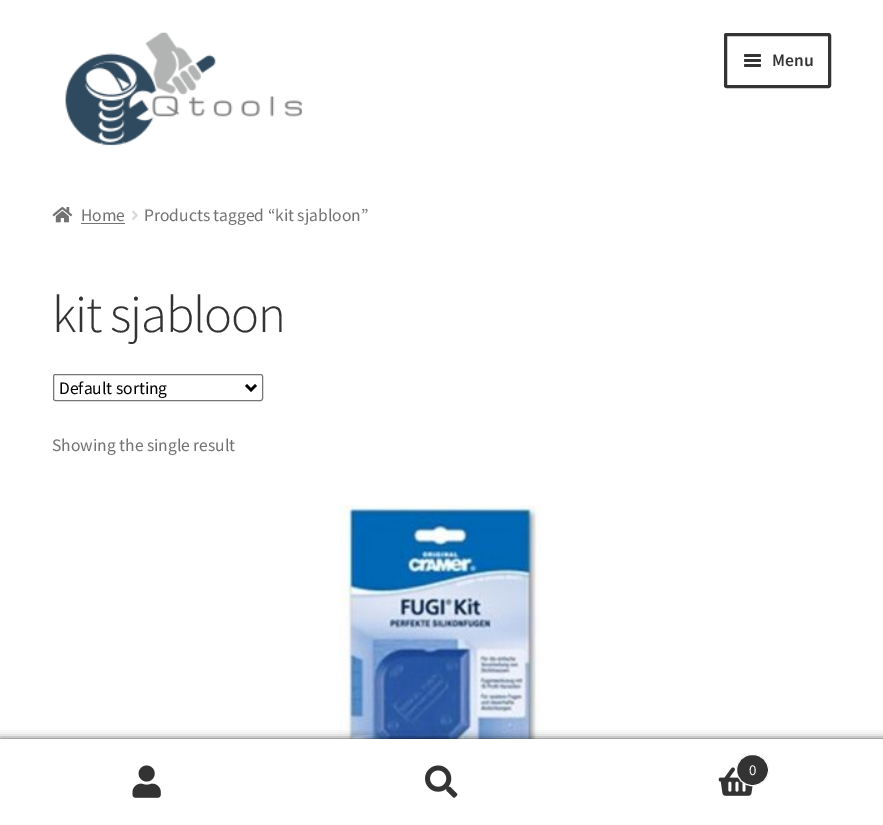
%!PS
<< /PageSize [883 825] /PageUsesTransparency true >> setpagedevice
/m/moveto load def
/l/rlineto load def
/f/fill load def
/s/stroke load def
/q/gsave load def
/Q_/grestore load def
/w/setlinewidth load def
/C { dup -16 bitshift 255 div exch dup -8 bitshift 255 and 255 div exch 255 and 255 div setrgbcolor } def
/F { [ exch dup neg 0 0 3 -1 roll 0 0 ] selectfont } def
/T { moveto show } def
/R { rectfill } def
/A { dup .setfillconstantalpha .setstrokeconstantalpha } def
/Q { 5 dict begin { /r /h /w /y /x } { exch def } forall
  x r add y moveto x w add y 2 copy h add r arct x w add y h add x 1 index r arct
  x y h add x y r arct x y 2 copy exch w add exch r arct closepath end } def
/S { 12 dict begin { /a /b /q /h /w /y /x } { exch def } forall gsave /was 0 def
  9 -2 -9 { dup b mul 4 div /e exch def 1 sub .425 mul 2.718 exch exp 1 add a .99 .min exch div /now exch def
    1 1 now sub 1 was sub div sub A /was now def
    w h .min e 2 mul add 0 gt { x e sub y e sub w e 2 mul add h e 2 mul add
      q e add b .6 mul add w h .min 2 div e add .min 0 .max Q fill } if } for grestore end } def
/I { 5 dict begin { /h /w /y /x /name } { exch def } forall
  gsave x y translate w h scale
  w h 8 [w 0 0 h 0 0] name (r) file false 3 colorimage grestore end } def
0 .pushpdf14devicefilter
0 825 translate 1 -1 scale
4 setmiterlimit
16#FFFFFF C
0 0 883 825 R
(1.rgb) 65 32 238 114 I
16#333333 C
3 w
725.5 34.5 104 52 1 Q s
744 54 17 3 1.5 Q f
744 59 17 3 1.5 Q f
/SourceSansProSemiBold-SemiBold 17.5 F
(Menu) 772 66 T
744 64 17 3 1.5 Q f
(2.rgb) 52 207 21 16 I
/SourceSansPro-Regular 17.5 F
16#727272 C
(Home) 81 221 T
81 223 44 1 R
(3.rgb) 132 210 6 10 I
(Products tagged “kit sjabloon”) 144 221 T
/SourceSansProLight-Light 52.5 F
16#333333 C
52 332 m -1.25 0 (kit sjabloon) ashow
16#767676 C
1 w
53.5 374.5 209 26 2 Q s
16#000000 C
2.5 w
246 385 m 5 5 l 5 -5 l s
/SourceSansPro-Regular 17.5 F
(Default sorting) 59 394 T
16#727272 C
(Showing the single result) 52 451 T
(4.rgb) 339 505 202 234 I
16#000000 C
0 739 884 86 0 4 .7 S
16#FFFFFF C
0 739 883 1 R
0 740 883 85 R
(5.rgb) 132 765 29 33 I
(6.rgb) 425 765 33 33 I
(7.rgb) 718 767 35 29 I
16#333333 C
736.5 754.5 32 31 15.5 Q q f Q_
16#FFFFFF C
1 w
s
/SourceSansPro-Regular 15 F
(0) 749 775 T
.poppdf14devicefilter showpage
